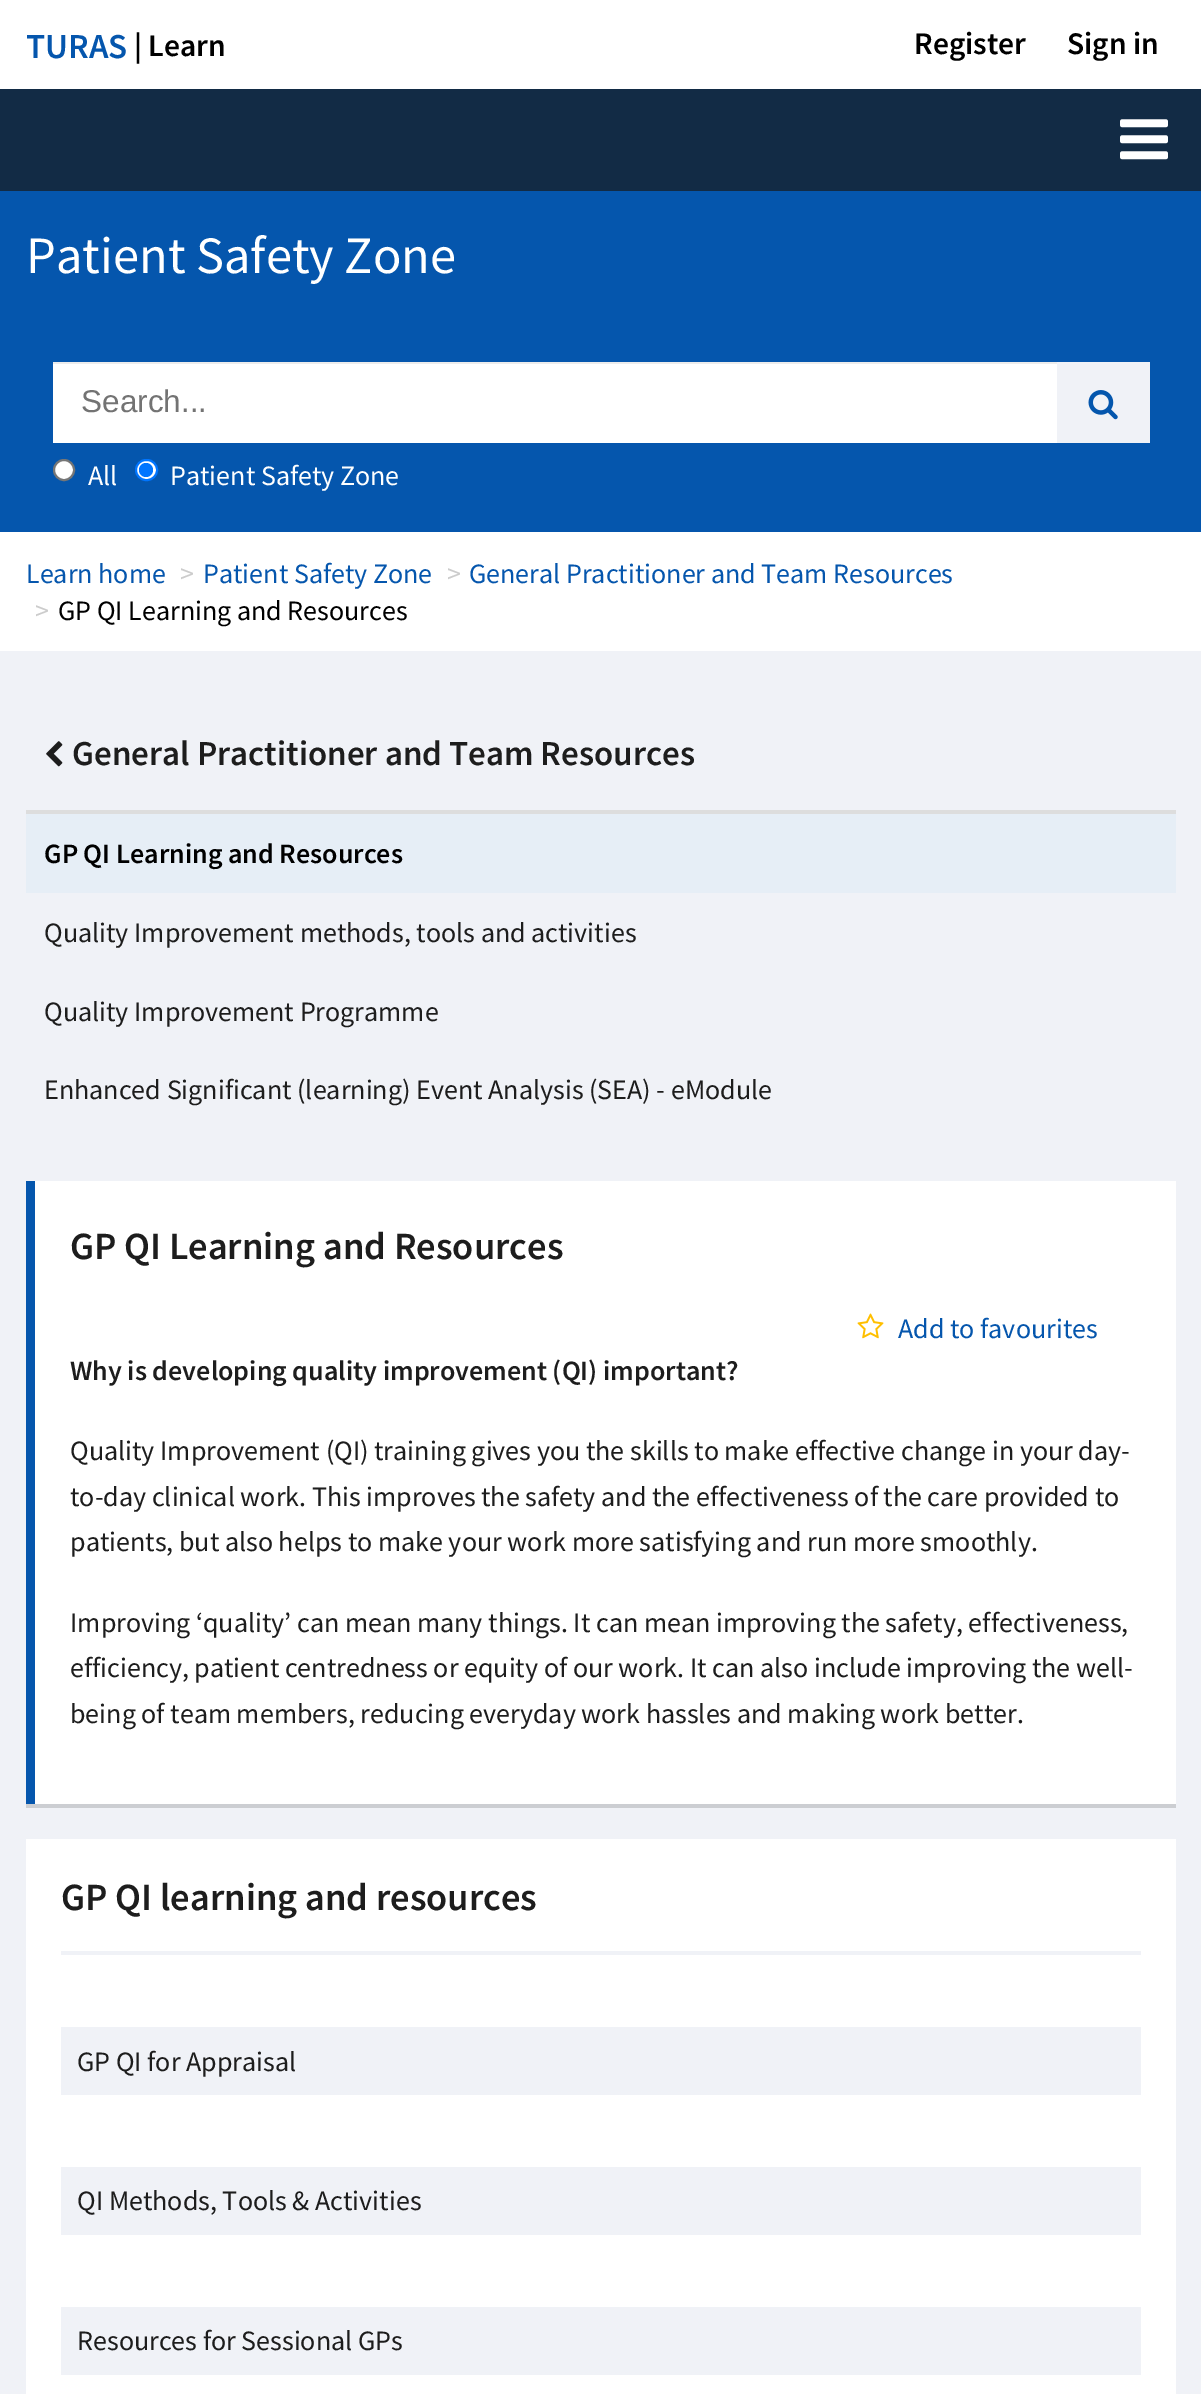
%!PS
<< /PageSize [1201 2394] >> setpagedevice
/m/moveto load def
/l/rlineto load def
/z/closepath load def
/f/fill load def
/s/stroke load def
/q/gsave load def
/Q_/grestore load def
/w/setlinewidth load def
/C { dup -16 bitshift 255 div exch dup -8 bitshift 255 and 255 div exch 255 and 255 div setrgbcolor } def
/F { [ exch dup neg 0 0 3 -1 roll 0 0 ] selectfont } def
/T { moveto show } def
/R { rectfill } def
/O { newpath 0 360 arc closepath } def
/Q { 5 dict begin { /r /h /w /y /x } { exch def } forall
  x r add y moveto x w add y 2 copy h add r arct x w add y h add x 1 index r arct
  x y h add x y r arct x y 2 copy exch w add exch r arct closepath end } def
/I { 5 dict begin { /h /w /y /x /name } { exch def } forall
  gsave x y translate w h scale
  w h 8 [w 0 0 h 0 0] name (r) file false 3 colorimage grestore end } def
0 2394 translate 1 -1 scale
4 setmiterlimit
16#F0F2F7 C
0 0 1201 2394 R
16#FFFFFF C
0 0 1201 89 R
/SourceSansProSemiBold-SemiBold 35 F
16#0556AD C
(TURAS) 26 58 T
/SourceSansProSemiBold-SemiBold 31.5 F
16#000000 C
(| Learn) 134 56 T
(Register) 914 54 T
(Sign in) 1067 54 T
16#122B45 C
0 89 1201 102 R
(1.rgb) 1120 119 48 41 I
16#0556AD C
0 191 1201 341 R
/SourceSansPro-Regular 52.5 F
16#FFFFFF C
(Patient Safety Zone) 26 273 T
53 364 1004 79 R
16#ECECEC C
53 362 1004 2 R
/LiberationSans-Regular 31.5 F
16#737373 C
(Search...) 81 412 T
16#F0F2F7 C
1057 362 93 81 R
(2.rgb) 1088 390 30 30 I
16#FFFFFF C
64 470 10 O q f Q_
16#767676 C
2 w
s
/SourceSansPro-Regular 28 F
16#FFFFFF C
(All) 88 485 T
136 460 21 20 10 Q q f Q_
16#0075FF C
s
146 470 7 O f
16#FFFFFF C
(Patient Safety Zone) 170 485 T
0 532 1201 119 R
16#0556AD C
(Learn home) 26 583 T
16#CCCCCC C
(>) 180 583 T
16#0556AD C
(Patient Safety Zone) 203 583 T
16#CCCCCC C
(>) 447 583 T
16#0556AD C
(General Practitioner and Team Resources) 469 583 T
16#CCCCCC C
(>) 35 620 T
16#000000 C
(GP QI Learning and Resources) 58 620 T
16#DDDDDD C
26 810 1150 4 R
(3.rgb) 46 741 17 26 I
/SourceSansProSemiBold-SemiBold 35 F
16#1D1D1D C
(General Practitioner and Team Resources) 72 765 T
16#E6EEF6 C
26 814 1150 79 R
/SourceSansProSemiBold-SemiBold 28 F
16#000000 C
(GP QI Learning and Resources) 44 863 T
/SourceSansPro-Regular 28 F
16#1D1D1D C
(Quality Improvement methods, tools and activities) 44 942 T
(Quality Improvement Programme) 44 1021 T
(Enhanced Significant \(learning\) Event Analysis \(SEA\) - eModule) 44 1099 T
16#CCCED2 C
26 1185 m 0 623 l 1150 0 l 0 -4 l -1150 0 l z f
16#FFFFFF C
35 1181 1141 623 R
16#0556AD C
26 1181 9 623 R
/SourceSansProSemiBold-SemiBold 38.5 F
16#1D1D1D C
(GP QI Learning and Resources) 70 1259 T
(4.rgb) 857 1313 27 26 I
/SourceSansPro-Regular 28 F
16#0556AD C
(Add to favourites) 898 1338 T
/SourceSansProSemiBold-SemiBold 28 F
16#1D1D1D C
(Why is developing quality improvement \(QI\) important?) 70 1380 T
/SourceSansPro-Regular 28 F
(Quality Improvement \(QI\) training gives you the skills to make effective change in your day-) 70 1460 T
(to-day clinical work. This improves the safety and the effectiveness of the care provided to) 70 1506 T
(patients, but also helps to make your work more satisfying and run more smoothly.) 70 1551 T
(Improving ‘quality’ can mean many things. It can mean improving the safety, effectiveness,) 70 1632 T
(efficiency, patient centredness or equity of our work. It can also include improving the well-) 70 1677 T
(being of team members, reducing everyday work hassles and making work better.) 70 1723 T
16#FFFFFF C
26 1839 1150 555 R
16#F0F2F7 C
61 1951 1080 4 R
/SourceSansProSemiBold-SemiBold 38.5 F
16#1D1D1D C
(GP QI learning and resources) 61 1910 T
16#F0F2F7 C
61 2027 1080 68 R
/SourceSansPro-Regular 28 F
16#1D1D1D C
(GP QI for Appraisal) 77 2071 T
16#F0F2F7 C
61 2167 1080 68 R
16#1D1D1D C
(QI Methods, Tools & Activities) 77 2210 T
16#F0F2F7 C
61 2307 1080 68 R
16#1D1D1D C
(Resources for Sessional GPs) 77 2350 T
showpage
